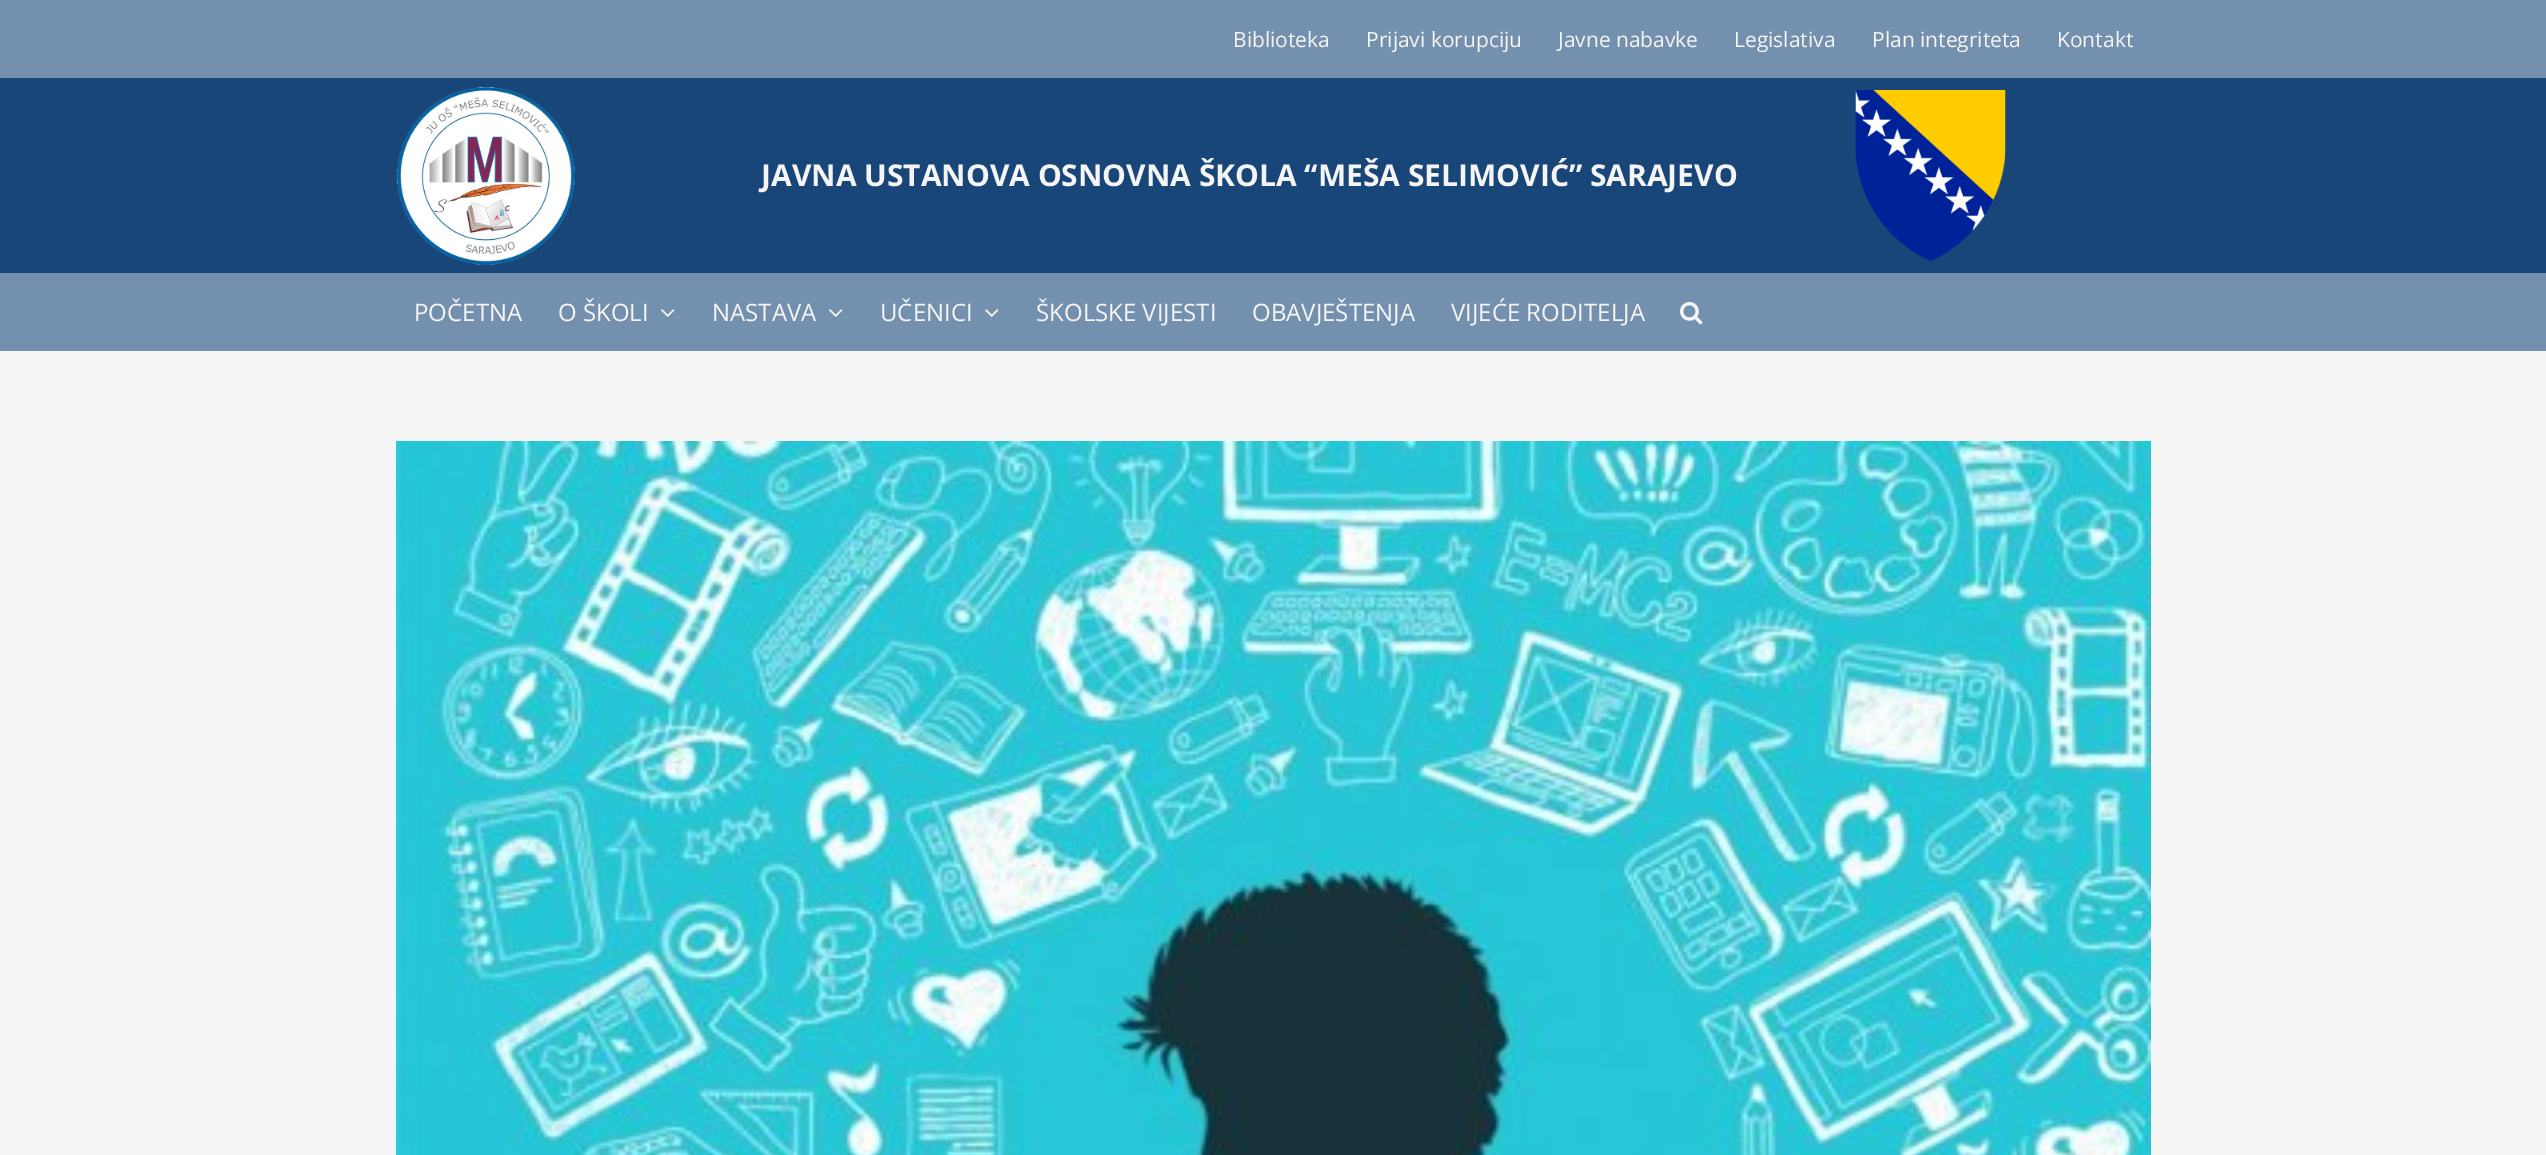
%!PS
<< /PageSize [2546 1155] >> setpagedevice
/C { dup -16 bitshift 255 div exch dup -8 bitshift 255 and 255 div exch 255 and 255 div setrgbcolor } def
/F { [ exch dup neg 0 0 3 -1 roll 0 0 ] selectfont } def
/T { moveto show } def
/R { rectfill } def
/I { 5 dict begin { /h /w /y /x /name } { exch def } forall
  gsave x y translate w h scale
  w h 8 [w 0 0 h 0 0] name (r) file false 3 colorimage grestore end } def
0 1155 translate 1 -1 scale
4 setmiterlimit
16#F5F5F5 C
0 0 2546 1155 R
16#7490AF C
0 0 2546 78 R
/OpenSans-Regular 21 F
16#F5F5F5 C
(Biblioteka) 1233 47 T
(Prijavi korupciju) 1366 47 T
(Javne nabavke) 1558 47 T
(Legislativa) 1734 47 T
(Plan integriteta) 1872 47 T
(Kontakt) 2057 47 T
16#184679 C
0 78 2546 195 R
(1.rgb) 396 87 179 178 I
/OpenSans-Bold 30 F
16#F5F5F5 C
(JAVNA USTANOVA OSNOVNA ŠKOLA “MEŠA SELIMOVIĆ” SARAJEVO) 761 186 T
(2.rgb) 1855 90 151 171 I
16#7490AF C
0 273 2546 78 R
/OpenSans-Regular 24 F
16#F5F5F5 C
(POČETNA) 414 321 T
(O ŠKOLI) 558 321 T
(3.rgb) 661 309 14 8 I
(NASTAVA) 712 321 T
(3.rgb) 829 309 14 8 I
(UČENICI) 880 321 T
(3.rgb) 985 309 14 8 I
(ŠKOLSKE VIJESTI) 1036 321 T
(OBAVJEŠTENJA) 1252 321 T
(VIJEĆE RODITELJA) 1451 321 T
(4.rgb) 1680 301 23 24 I
(5.rgb) 396 441 1755 714 I
showpage
